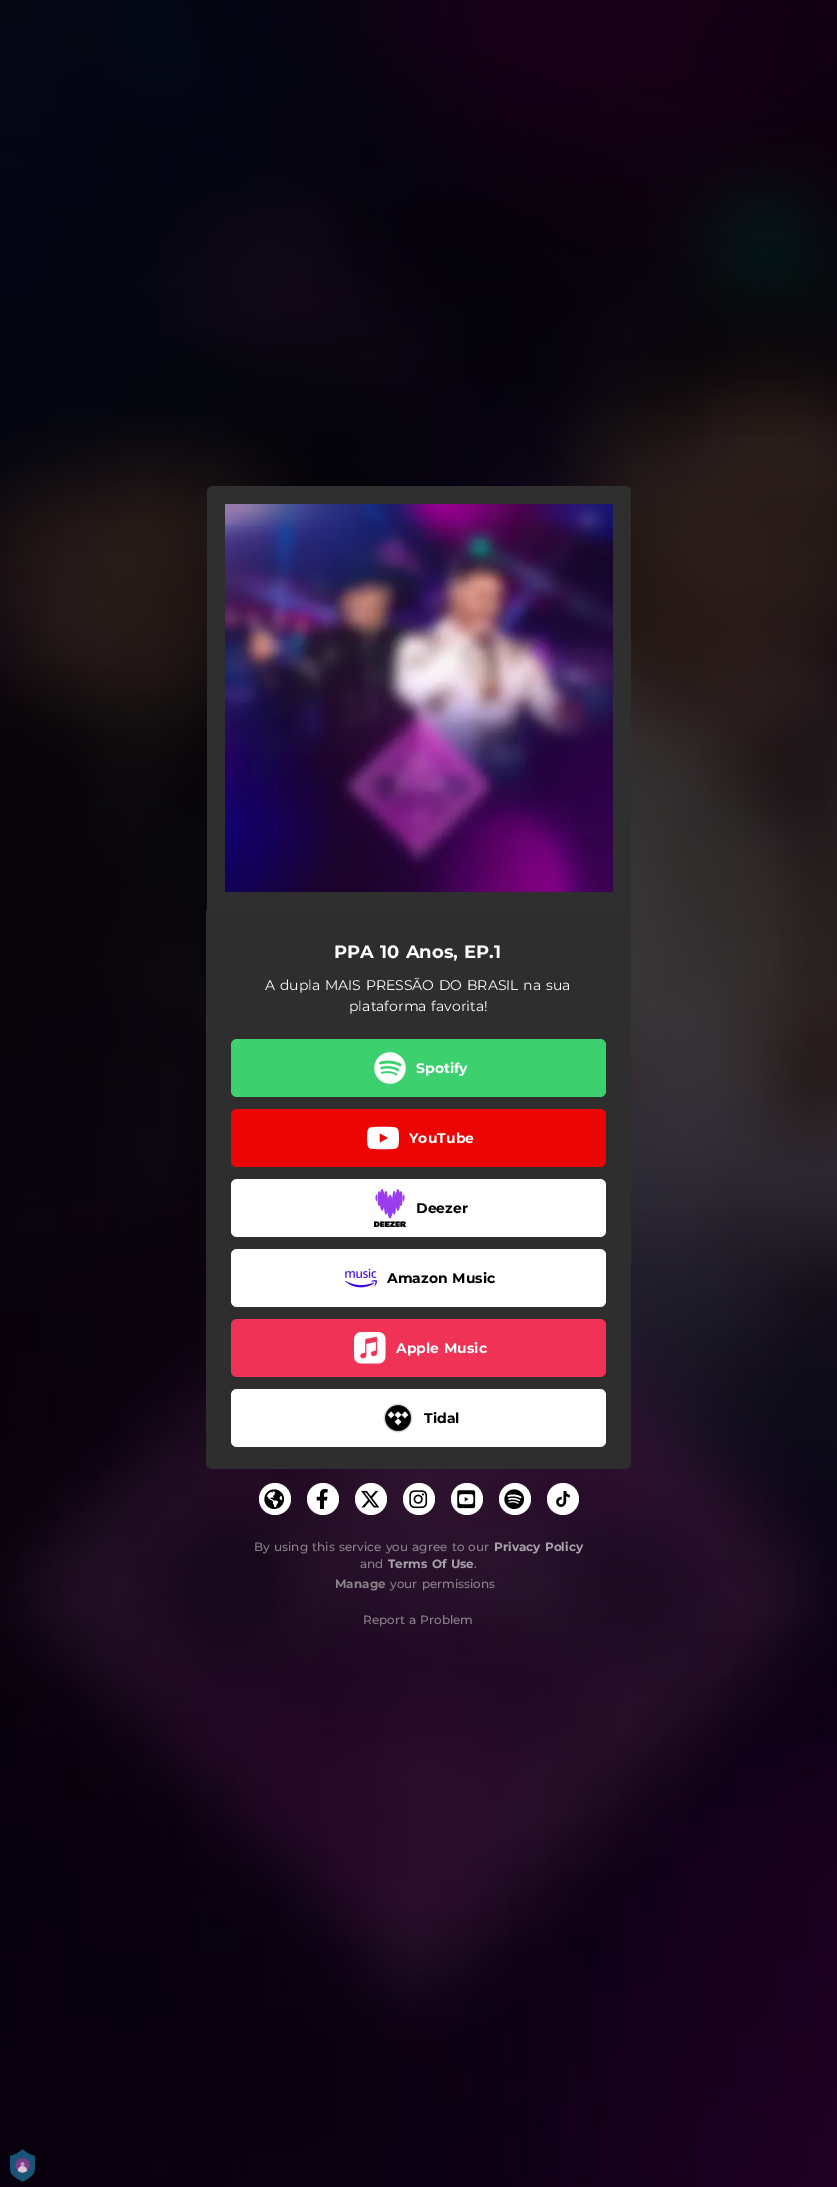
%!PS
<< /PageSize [837 2187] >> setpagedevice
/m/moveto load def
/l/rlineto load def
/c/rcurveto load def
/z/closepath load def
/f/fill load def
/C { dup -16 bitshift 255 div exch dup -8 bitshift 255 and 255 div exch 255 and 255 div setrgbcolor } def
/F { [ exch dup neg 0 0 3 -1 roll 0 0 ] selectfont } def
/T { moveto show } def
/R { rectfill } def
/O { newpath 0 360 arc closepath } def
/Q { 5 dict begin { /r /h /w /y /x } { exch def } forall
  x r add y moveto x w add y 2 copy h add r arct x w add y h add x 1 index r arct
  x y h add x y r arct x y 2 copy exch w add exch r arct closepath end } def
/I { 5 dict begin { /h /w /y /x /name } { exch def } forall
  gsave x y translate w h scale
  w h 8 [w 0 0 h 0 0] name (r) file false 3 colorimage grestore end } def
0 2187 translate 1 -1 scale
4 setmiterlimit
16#FFFFFF C
0 0 837 2187 R
(1.rgb) 0 0 837 2187 I
16#2F2F2F C
213 486 m 412 0 l 3.5 0 6 2.5 6 6 c 0 418 l -424 0 l 0 -418 l 0 -3.5 2.5 -6 6 -6 c z f
(2.rgb) 225 504 388 388 I
16#2E2E2E C
206 910 m 425 0 l 0 553 l 0 3.5 -2.5 6 -6 6 c -413 0 l -3.5 0 -6 -2.5 -6 -6 c z f
/Montserrat-Bold 18 F
16#FFFFFF C
334 958 m 1 0 32 (PPA 10 Anos, EP.1) widthshow
/Montserrat-Regular 14 F
265 990 m 1 0 32 (A dupla MAIS PRESSÃO DO BRASIL na sua) widthshow
349 1011 m 1 0 32 (plataforma favorita!) widthshow
16#3CD16E C
231 1039 375 58 6 Q f
(3.rgb) 374 1052 32 32 I
/Montserrat-Bold 14 F
16#FFFFFF C
(Spotify) 416 1073 T
16#EB0505 C
231 1109 375 58 6 Q f
(4.rgb) 367 1126 32 24 I
16#FFFFFF C
(YouTube) 409 1143 T
231 1179 375 58 6 Q f
(5.rgb) 374 1189 32 38 I
16#000000 C
(Deezer) 416 1213 T
16#FFFFFF C
231 1249 375 58 6 Q f
(6.rgb) 345 1268 32 20 I
16#000000 C
387 1283 m 1 0 32 (Amazon Music) widthshow
16#EF3256 C
231 1319 375 58 6 Q f
(7.rgb) 354 1332 32 32 I
16#FFFFFF C
396 1353 m 1 0 32 (Apple Music) widthshow
231 1389 375 58 6 Q f
(8.rgb) 383 1403 30 30 I
16#000000 C
(Tidal) 424 1423 T
16#FFFFFF C
275 1499 16 O f
(9.rgb) 264 1489 21 20 I
323 1499 16 O f
(10.rgb) 316 1489 12 20 I
371 1499 16 O f
(11.rgb) 361 1490 19 18 I
419 1499 16 O f
(12.rgb) 409 1490 19 19 I
467 1499 16 O f
(13.rgb) 457 1490 19 19 I
515 1499 16 O f
(14.rgb) 504 1489 21 20 I
563 1499 16 O f
(15.rgb) 556 1491 14 16 I
/Montserrat-Medium 12 F
16#8A808A C
254 1551 m 1 0 32 (By using this service you agree to our) widthshow
/Montserrat-Bold 12 F
16#A8A0AA C
494 1551 m 1 0 32 (Privacy Policy) widthshow
/Montserrat-Medium 12 F
16#8A808A C
(and) 360 1568 T
/Montserrat-Bold 12 F
16#A8A0AA C
388 1568 m 1 0 32 (Terms Of Use) widthshow
/Montserrat-Medium 12 F
16#8A808A C
(.) 474 1568 T
/Montserrat-Bold 12 F
(Manage) 335 1588 T
/Montserrat-Medium 12 F
390 1588 m 1 0 32 (your permissions) widthshow
363 1624 m 1 0 32 (Report a Problem) widthshow
(16.rgb) 10 2149 25 33 I
showpage
